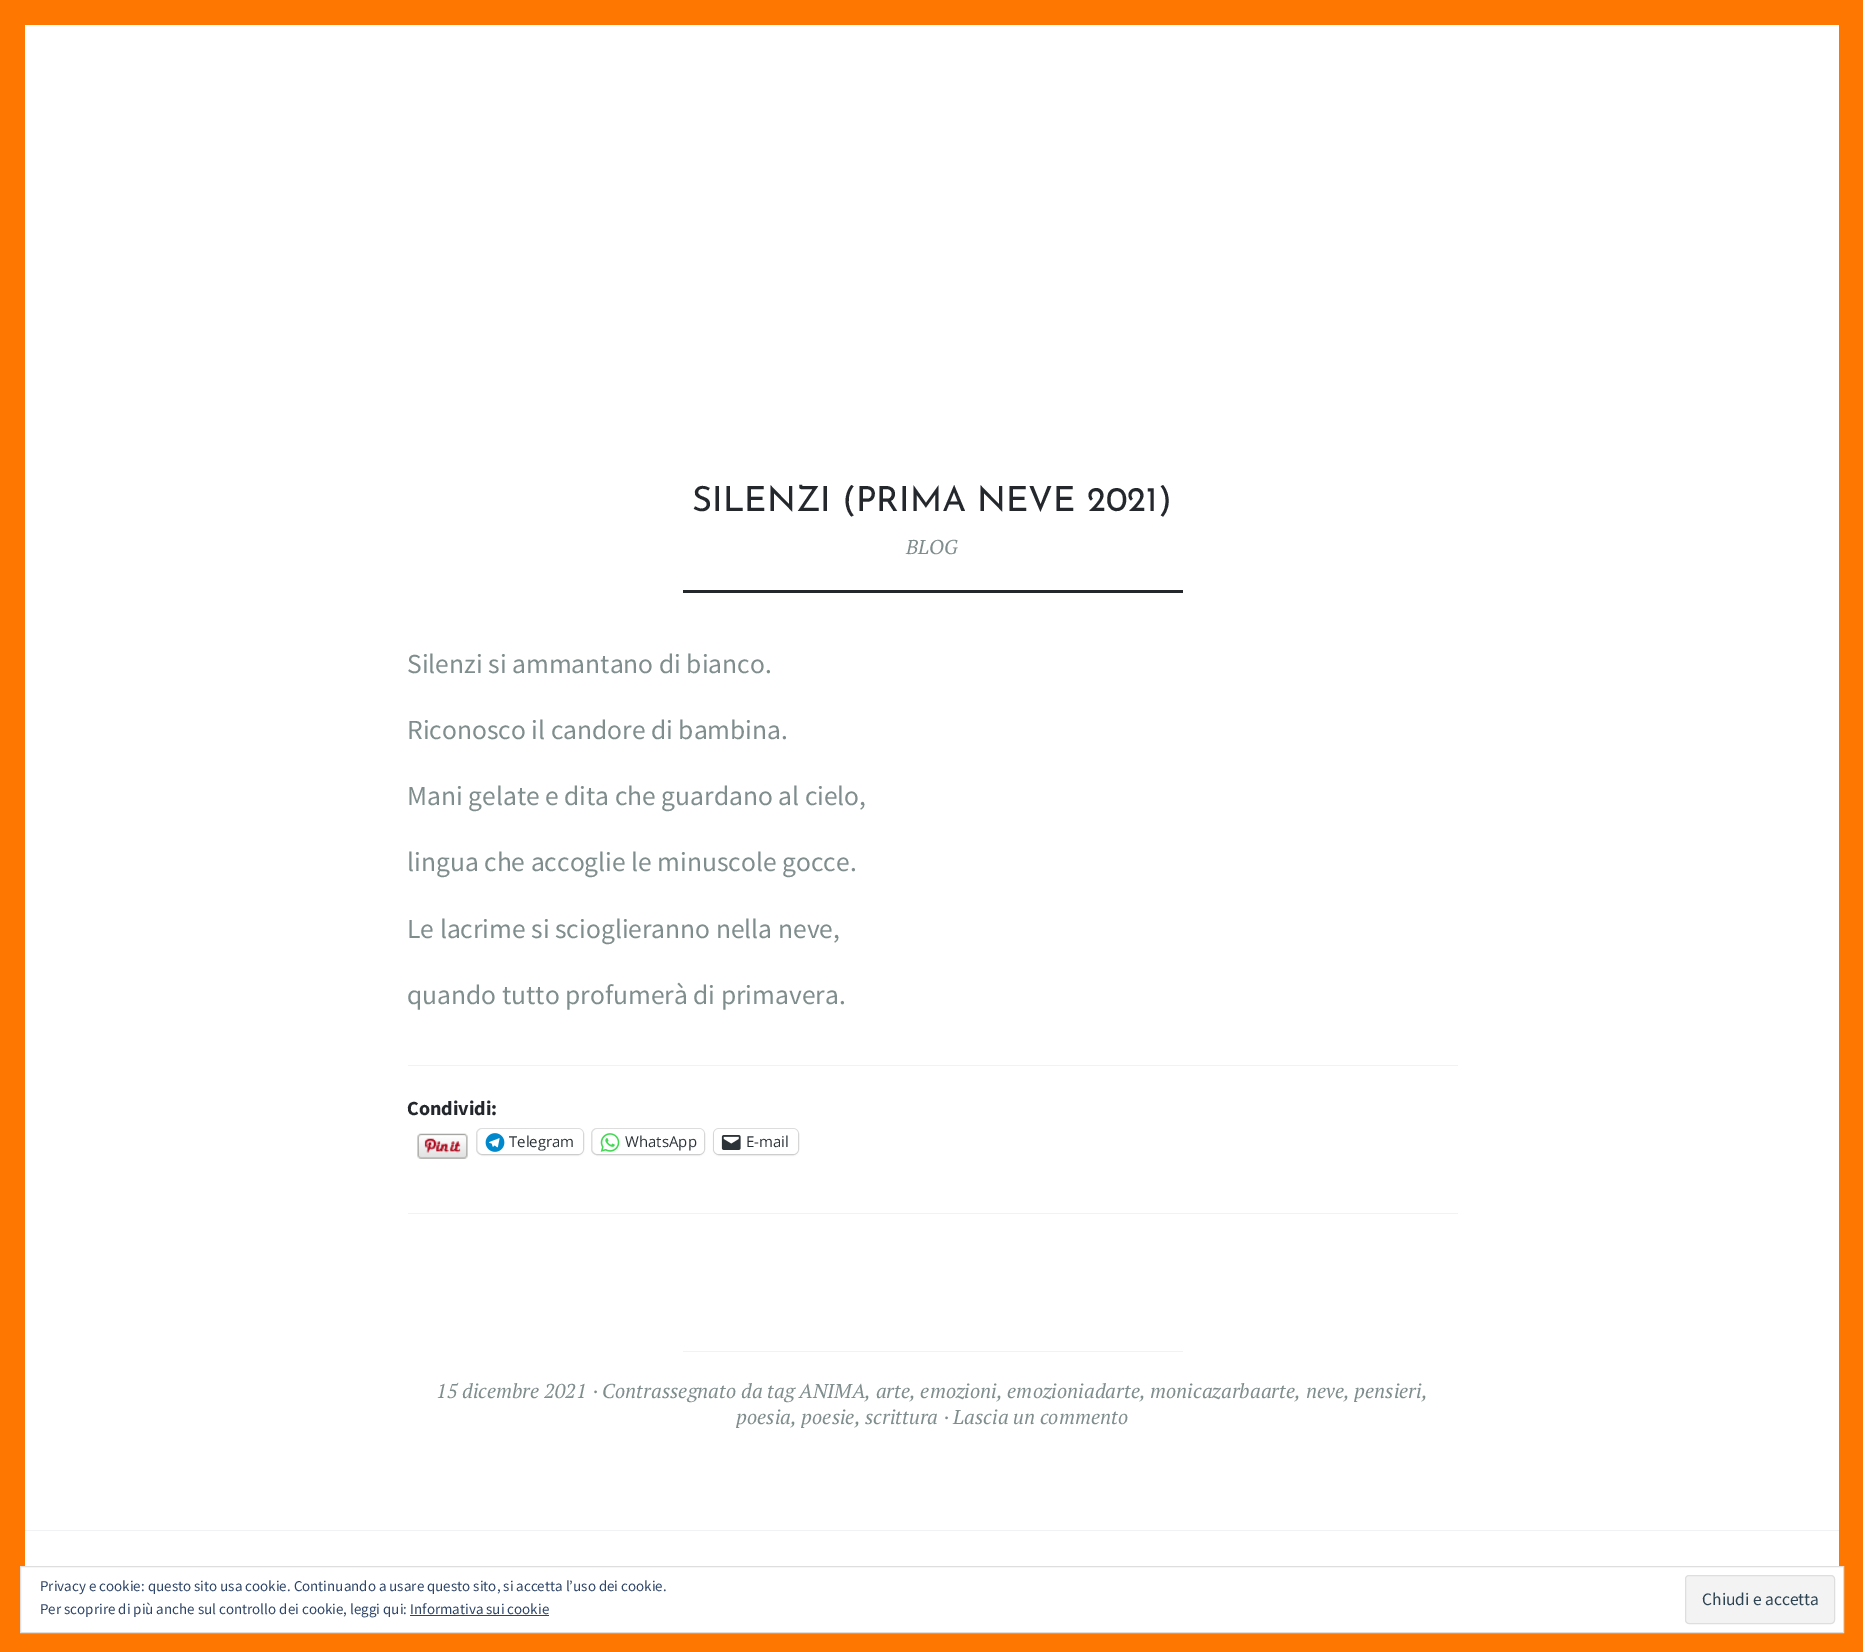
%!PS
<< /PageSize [1863 1652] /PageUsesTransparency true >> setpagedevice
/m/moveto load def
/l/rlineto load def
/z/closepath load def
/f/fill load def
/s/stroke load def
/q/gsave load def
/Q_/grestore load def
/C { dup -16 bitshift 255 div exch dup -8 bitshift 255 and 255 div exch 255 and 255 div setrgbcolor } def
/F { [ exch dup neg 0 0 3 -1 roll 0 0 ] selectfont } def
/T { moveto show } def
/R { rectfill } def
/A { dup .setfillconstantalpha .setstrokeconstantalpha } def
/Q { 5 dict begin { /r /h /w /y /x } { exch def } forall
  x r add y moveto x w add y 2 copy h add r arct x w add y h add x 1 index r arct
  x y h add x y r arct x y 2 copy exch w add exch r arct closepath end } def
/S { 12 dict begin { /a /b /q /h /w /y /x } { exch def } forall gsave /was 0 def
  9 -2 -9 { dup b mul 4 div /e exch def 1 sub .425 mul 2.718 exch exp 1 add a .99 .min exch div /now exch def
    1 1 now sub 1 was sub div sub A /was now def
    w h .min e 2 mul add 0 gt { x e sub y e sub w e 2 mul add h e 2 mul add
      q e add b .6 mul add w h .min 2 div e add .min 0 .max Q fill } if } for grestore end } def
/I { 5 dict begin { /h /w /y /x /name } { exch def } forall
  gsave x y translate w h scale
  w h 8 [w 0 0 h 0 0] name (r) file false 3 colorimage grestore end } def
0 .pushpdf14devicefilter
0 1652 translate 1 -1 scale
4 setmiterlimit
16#FD7701 C
0 0 1863 1652 R
16#FFFFFF C
25 25 1814 1541 R
/JosefinSans-Thin 34.6 F
16#24282D C
(SILENZI \(PRIMA NEVE 2021\)) 692 511 T
/PTSerif-Italic 20.05 F
16#7F8D8C C
(BLOG) 906 554 T
16#24282D C
683 590 500 3 R
/SourceSansPro-Regular 27.5 F
16#7F8D8C C
(Silenzi si ammantano di bianco.) 407 673 T
(Riconosco il candore di bambina.) 407 739 T
(Mani gelate e dita che guardano al cielo,) 407 805 T
(lingua che accoglie le minuscole gocce.) 407 871 T
(Le lacrime si scioglieranno nella neve,) 407 938 T
(quando tutto profumerà di primavera.) 407 1004 T
16#F1F2F3 C
408 1065 1050 1 R
/SourceSansPro-Bold 20.05 F
16#24282D C
(Condividi:) 407 1115 T
(1.rgb) 417 1133 51 26 I
16#E0E0E0 C
476.5 1128.5 107 26 5.5 Q s
16#000000 C
478 1130 105 25 5 1 .12 S
16#FFFFFF C
478 1129 105 25 5 Q f
(2.rgb) 485 1133 20 19 I
/OpenSans-Regular 15 F
16#2C3338 C
(Telegram) 509 1147 T
16#E0E0E0 C
591.5 1128.5 113 26 5.5 Q s
16#000000 C
593 1130 111 25 5 1 .12 S
16#FFFFFF C
593 1129 111 25 5 Q f
(3.rgb) 600 1133 20 19 I
16#2C3338 C
(WhatsApp) 625 1147 T
16#E0E0E0 C
713.5 1128.5 85 26 5.5 Q s
16#000000 C
714 1130 84 25 5 1 .12 S
16#FFFFFF C
714 1129 84 25 5 Q f
(4.rgb) 721 1135 20 15 I
16#2C3338 C
(E-mail) 746 1147 T
16#F1F2F3 C
408 1213 1050 1 R
683 1351 500 1 R
/PTSerif-Italic 20.05 F
16#7F8D8C C
(15 dicembre 2021) 436 1398 T
(· Contrassegnato da tag ANIMA, arte, emozioni, emozioniadarte, monicazarbaarte, neve, pensieri,) 593 1398 T
(poesia, poesie, scrittura) 736 1424 T
(· Lascia un commento) 944 1424 T
16#F1F2F3 C
25 1530 1814 1 R
16#FFFFFF C
20.5 1566.5 m 1823 0 l 0 66 l -1823 0 l z q f Q_
16#DEDEDE C
s
/SourceSansPro-Regular 15 F
16#2E4467 C
(Privacy e cookie: questo sito usa cookie. Continuando a usare questo sito, si accetta l’uso dei cookie.) 40 1591 T
16#F3F3F3 C
1685.5 1575.5 149 48 3.5 Q q f Q_
16#DEDEDE C
s
/SourceSansPro-Regular 17.5 F
16#2E4453 C
(Chiudi e accetta) 1702 1605 T
/SourceSansPro-Regular 15 F
16#2E4467 C
(Per scoprire di più anche sul controllo dei cookie, leggi qui: Informativa sui cookie) 40 1614 T
410 1615 139 1 R
.poppdf14devicefilter showpage
